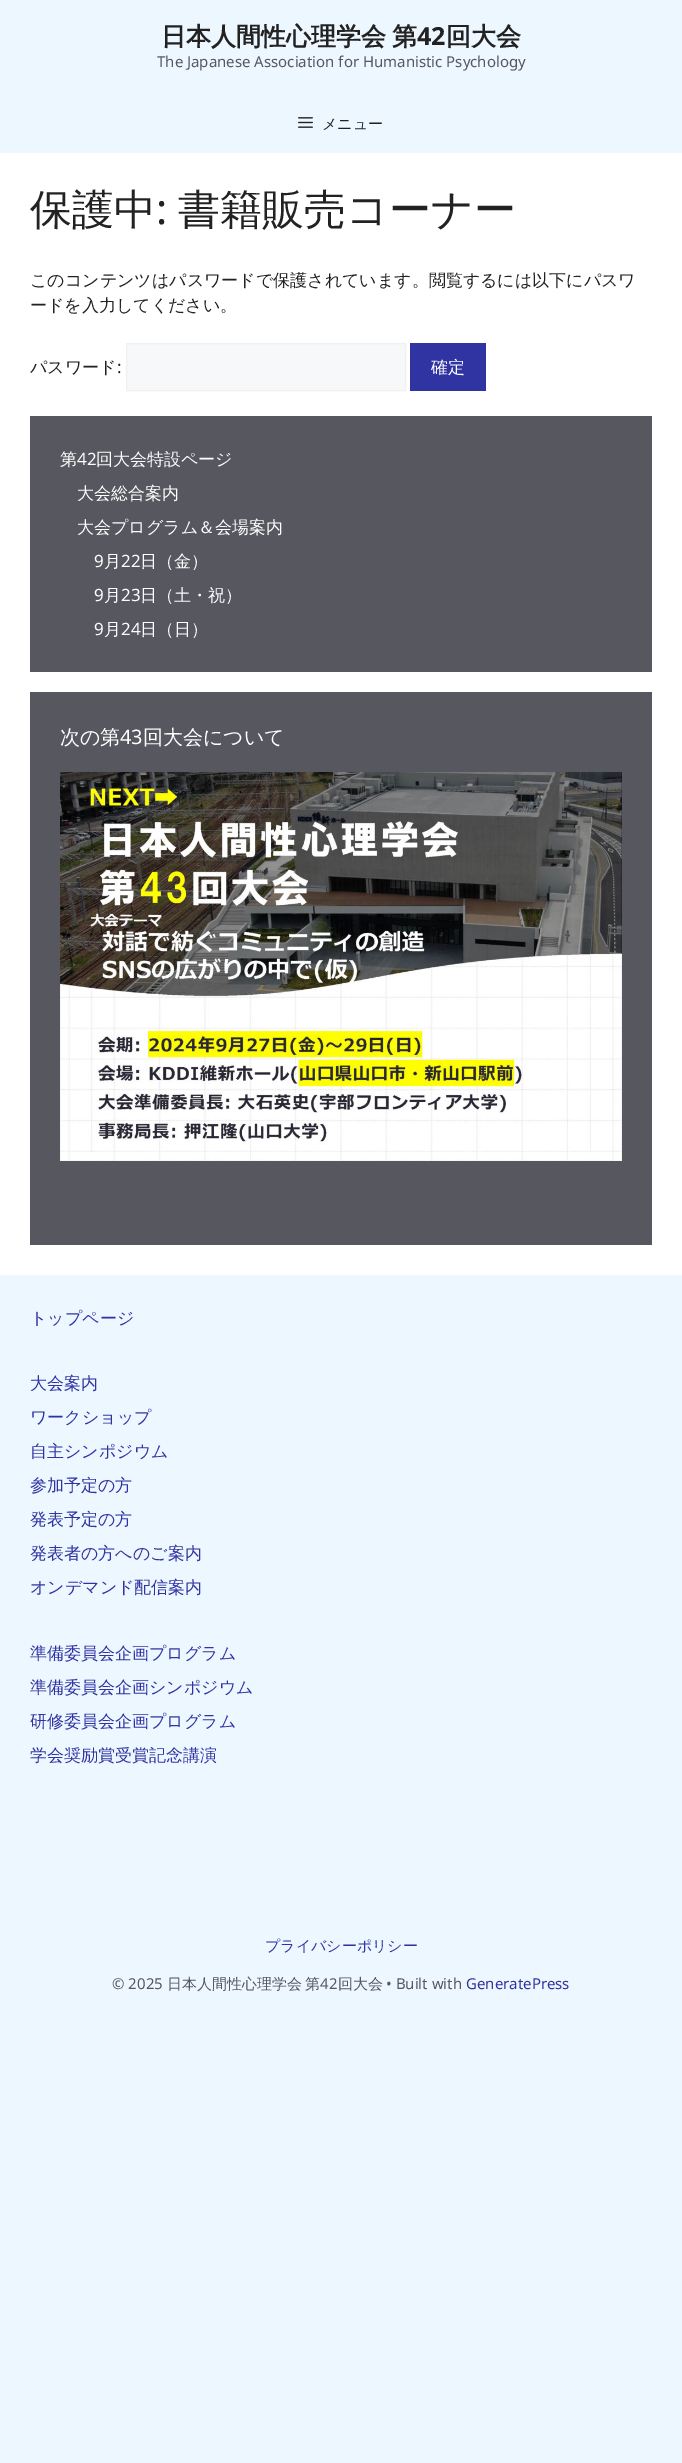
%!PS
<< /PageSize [682 2463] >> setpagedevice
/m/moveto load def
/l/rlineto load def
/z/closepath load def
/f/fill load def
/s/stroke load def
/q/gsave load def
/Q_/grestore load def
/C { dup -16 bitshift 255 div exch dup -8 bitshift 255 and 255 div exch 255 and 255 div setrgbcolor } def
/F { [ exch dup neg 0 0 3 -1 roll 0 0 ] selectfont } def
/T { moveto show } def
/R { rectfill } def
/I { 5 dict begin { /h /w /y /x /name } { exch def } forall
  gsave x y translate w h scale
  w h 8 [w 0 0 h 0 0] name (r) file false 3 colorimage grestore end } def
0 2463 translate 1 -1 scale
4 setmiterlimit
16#EDF7FF C
0 0 682 2463 R
/WenQuanYiZenHei-Bold 25 F
16#222222 C
161 45 m -1 0 32 (日本人間性心理学会 第) widthshow
/NotoSans-Bold 25 F
(42) 417 45 T
/WenQuanYiZenHei-Bold 25 F
(回大会) 446 45 T
/NotoSans-Regular 15 F
16#575760 C
(The Japanese Association for Humanistic Psychology) 157 67 T
(1.rgb) 298 117 15 11 I
/WenQuanYiZenHei-Medium 15 F
16#222222 C
(メニュー) 322 129 T
16#FFFFFF C
0 153 682 1122 R
/WenQuanYiZenHei-Medium 42 F
16#222222 C
(保護中) 30 224 T
/NotoSans-Regular 42 F
(:) 156 224 T
/WenQuanYiZenHei-Medium 42 F
(書籍販売コーナー) 178 224 T
/WenQuanYiZenHei-Medium 17 F
(このコンテンツはパスワードで保護されています。閲覧するには以下にパスワ) 30 286 T
(ードを入力してください。) 30 311 T
(パスワード) 30 373 T
/NotoSans-Regular 17 F
(:) 117 373 T
16#F7F8F9 C
126.5 343.5 m 279 0 l 0 47 l -279 0 l z q f Q_
16#F0F0F0 C
s
16#3034A2 C
410 343 76 48 R
/WenQuanYiZenHei-Medium 17 F
16#FFFFFF C
(確定) 431 373 T
16#575760 C
30 416 622 256 R
16#FFFFFF C
(第) 60 465 T
/NotoSans-Regular 17 F
(42) 77 465 T
/WenQuanYiZenHei-Medium 17 F
(回大会特設ページ) 96 465 T
(大会総合案内) 77 499 T
(大会プログラム＆会場案内) 77 533 T
/NotoSans-Regular 17 F
(9) 94 567 T
/WenQuanYiZenHei-Medium 17 F
(月) 104 567 T
/NotoSans-Regular 17 F
(22) 121 567 T
/WenQuanYiZenHei-Medium 17 F
(日（金）) 140 567 T
/NotoSans-Regular 17 F
(9) 94 601 T
/WenQuanYiZenHei-Medium 17 F
(月) 104 601 T
/NotoSans-Regular 17 F
(23) 121 601 T
/WenQuanYiZenHei-Medium 17 F
(日（土・祝）) 140 601 T
/NotoSans-Regular 17 F
(9) 94 635 T
/WenQuanYiZenHei-Medium 17 F
(月) 104 635 T
/NotoSans-Regular 17 F
(24) 121 635 T
/WenQuanYiZenHei-Medium 17 F
(日（日）) 140 635 T
16#575760 C
30 692 622 553 R
/WenQuanYiZenHei-Medium 20 F
16#FFFFFF C
(次の第) 60 744 T
/NotoSans-Regular 20 F
(43) 120 744 T
/WenQuanYiZenHei-Medium 20 F
(回大会について) 143 744 T
(2.rgb) 60 772 562 389 I
/WenQuanYiZenHei-Medium 17 F
16#3034A2 C
(トップページ) 30 1324 T
(大会案内) 30 1389 T
(ワークショップ) 30 1423 T
(自主シンポジウム) 30 1457 T
(参加予定の方) 30 1491 T
(発表予定の方) 30 1525 T
(発表者の方へのご案内) 30 1559 T
(オンデマンド配信案内) 30 1593 T
(準備委員会企画プログラム) 30 1659 T
(準備委員会企画シンポジウム) 30 1693 T
(研修委員会企画プログラム) 30 1727 T
(学会奨励賞受賞記念講演) 30 1761 T
/WenQuanYiZenHei-Medium 15 F
(プライバシーポリシー) 265 1951 T
/NotoSans-Regular 15 F
16#575760 C
(© 2025) 112 1989 T
/WenQuanYiZenHei-Medium 15 F
(日本人間性心理学会) 167 1989 T
(第) 305 1989 T
/NotoSans-Regular 15 F
(42) 320 1989 T
/WenQuanYiZenHei-Medium 15 F
(回大会) 338 1989 T
/NotoSans-Regular 15 F
(• Built with) 386 1989 T
16#3034A2 C
(GeneratePress) 466 1989 T
showpage
